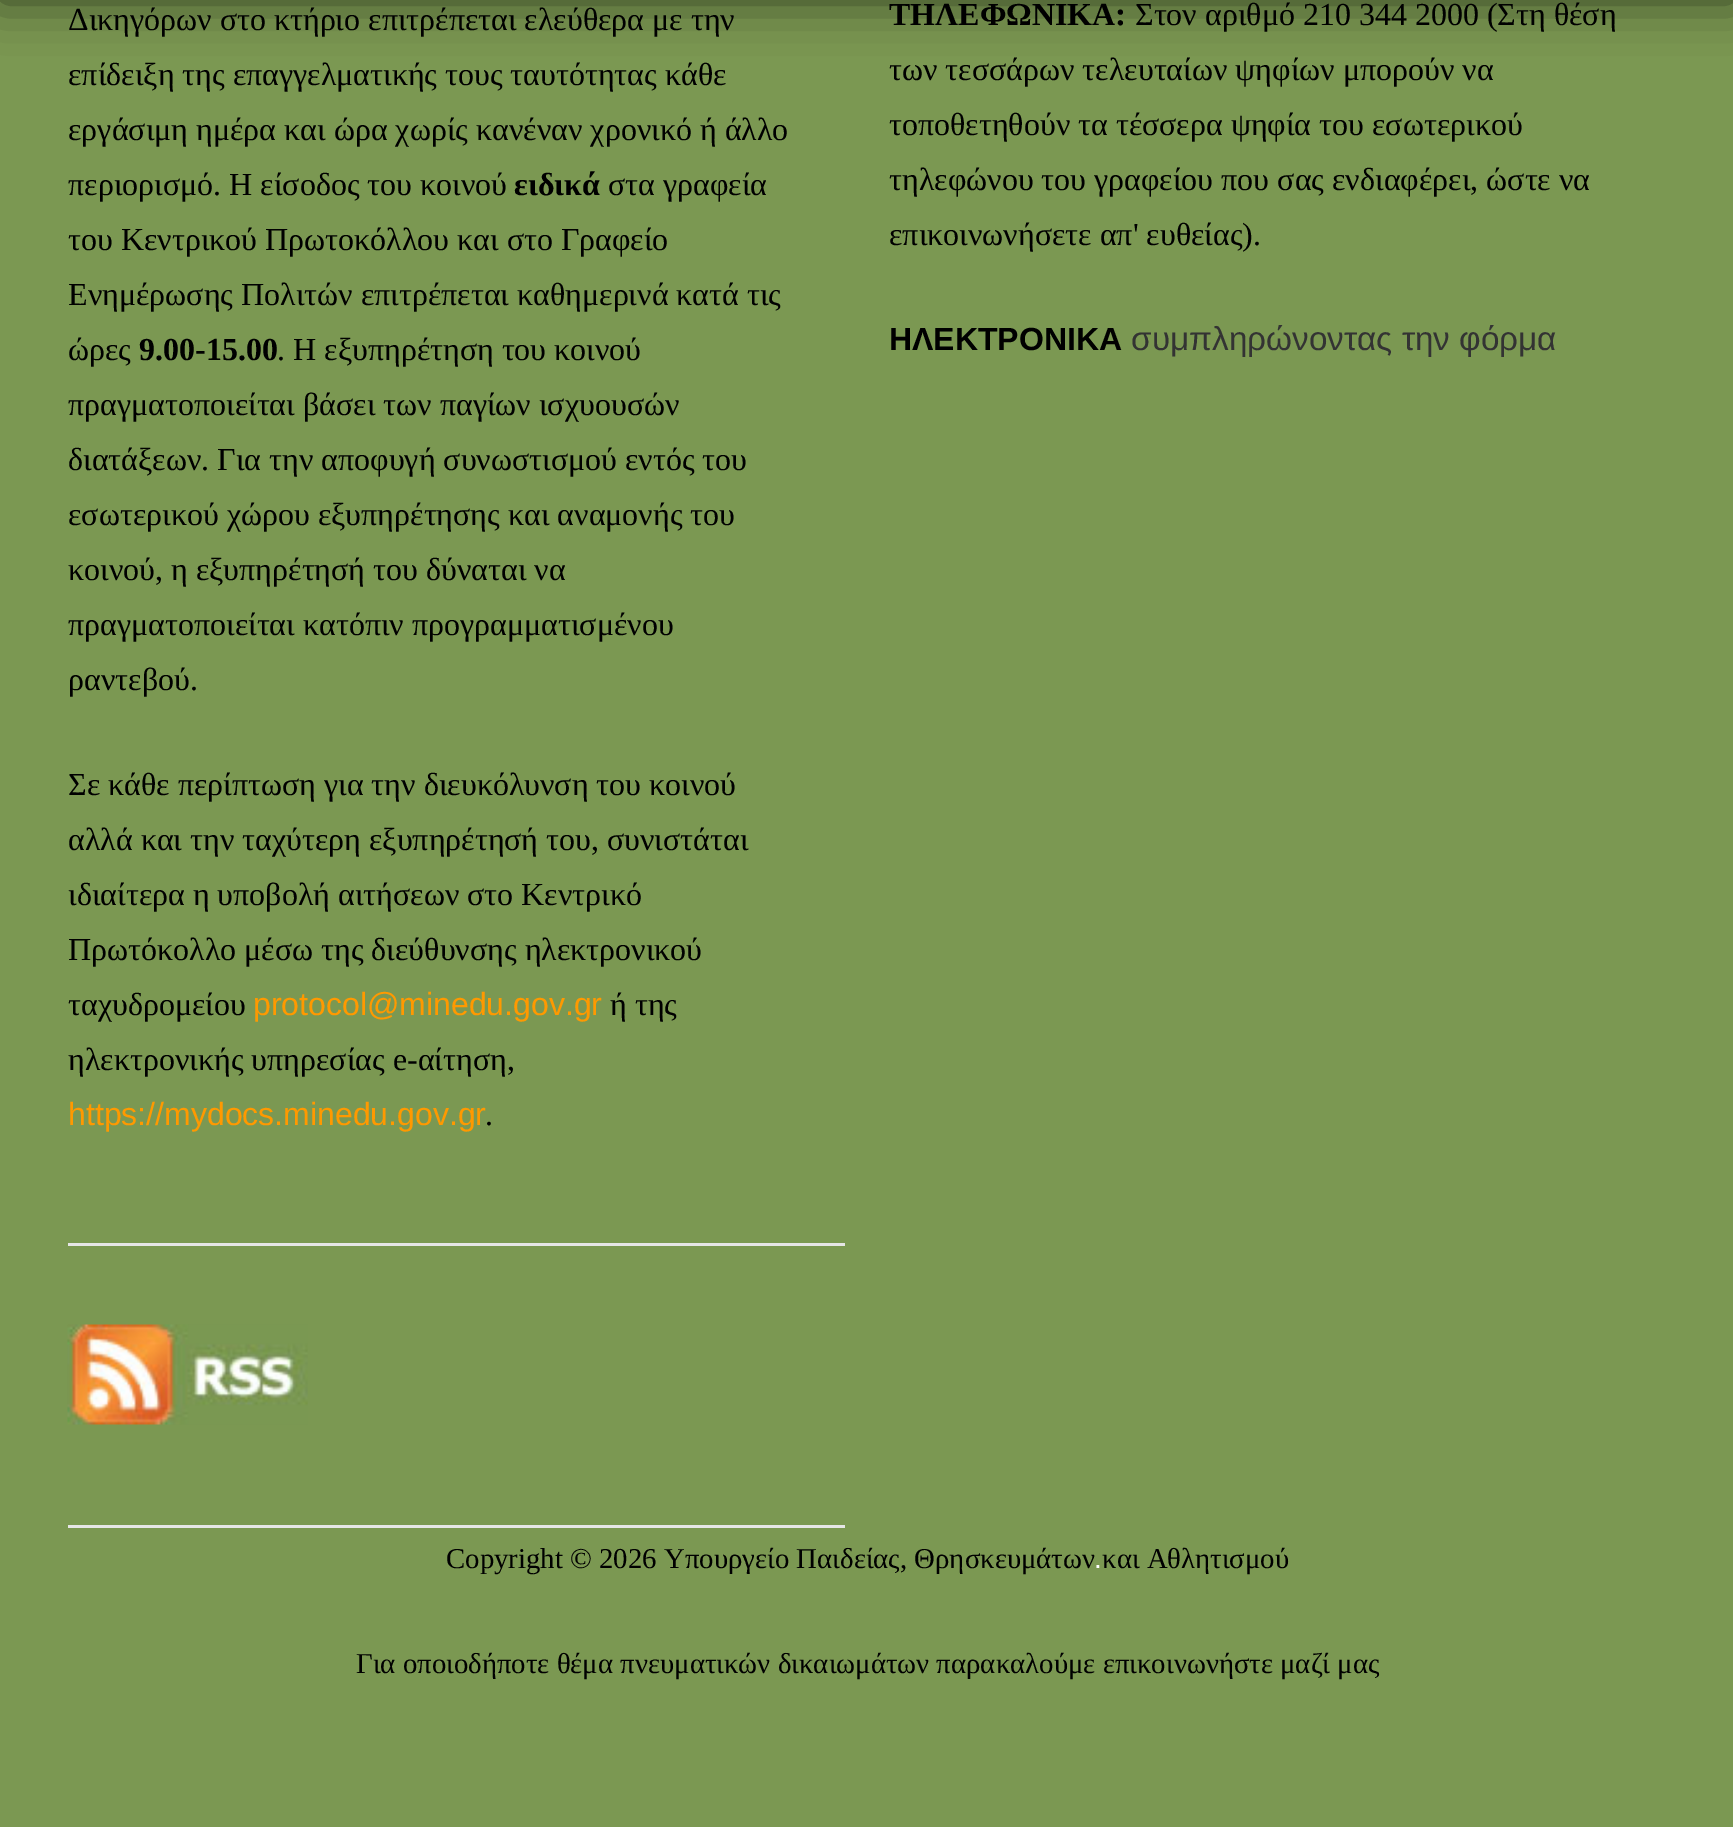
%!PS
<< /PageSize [1733 1827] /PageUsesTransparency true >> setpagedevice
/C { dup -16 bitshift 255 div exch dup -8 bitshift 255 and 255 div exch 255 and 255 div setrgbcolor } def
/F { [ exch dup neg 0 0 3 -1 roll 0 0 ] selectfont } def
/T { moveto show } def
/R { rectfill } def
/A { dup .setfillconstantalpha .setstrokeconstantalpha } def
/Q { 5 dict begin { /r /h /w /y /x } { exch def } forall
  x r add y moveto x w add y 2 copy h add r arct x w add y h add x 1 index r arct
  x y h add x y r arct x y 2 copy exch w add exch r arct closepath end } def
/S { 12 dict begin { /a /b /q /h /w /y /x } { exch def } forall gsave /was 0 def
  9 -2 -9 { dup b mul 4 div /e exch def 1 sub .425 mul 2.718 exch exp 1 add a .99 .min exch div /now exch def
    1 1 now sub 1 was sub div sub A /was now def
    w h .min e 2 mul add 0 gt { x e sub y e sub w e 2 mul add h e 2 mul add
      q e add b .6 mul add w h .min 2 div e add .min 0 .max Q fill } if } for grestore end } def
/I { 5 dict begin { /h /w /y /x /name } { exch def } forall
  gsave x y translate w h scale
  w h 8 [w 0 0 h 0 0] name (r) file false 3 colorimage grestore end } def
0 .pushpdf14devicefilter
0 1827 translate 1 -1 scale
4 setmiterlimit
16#7B9852 C
0 0 1733 1827 R
16#000000 C
0 -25 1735 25 0 25 .6 S
16#E6E6E6 C
68 1243 777 3 R
/LiberationSerif-Regular 32 F
16#000000 C
(Δικηγόρων στο κτήριο επιτρέπεται ελεύθερα με την) 68 30 T
(επίδειξη της επαγγελματικής τους ταυτότητας κάθε) 68 85 T
(εργάσιμη ημέρα και ώρα χωρίς κανέναν χρονικό ή άλλο) 68 140 T
(περιορισμό. Η είσοδος του κοινού) 68 195 T
/LiberationSerif-Bold 32 F
(ειδικά) 514 195 T
/LiberationSerif-Regular 32 F
(στα γραφεία) 608 195 T
(του Κεντρικού Πρωτοκόλλου και στο Γραφείο) 68 250 T
(Ενημέρωσης Πολιτών επιτρέπεται καθημερινά κατά τις) 68 305 T
(ώρες) 68 360 T
/LiberationSerif-Bold 32 F
(9.00-15.00) 139 360 T
/LiberationSerif-Regular 32 F
(. Η εξυπηρέτηση του κοινού) 277 360 T
(πραγματοποιείται βάσει των παγίων ισχυουσών) 68 415 T
(διατάξεων. Για την αποφυγή συνωστισμού εντός του) 68 470 T
(εσωτερικού χώρου εξυπηρέτησης και αναμονής του) 68 525 T
(κοινού, η εξυπηρέτησή του δύναται να) 68 580 T
(πραγματοποιείται κατόπιν προγραμματισμένου) 68 635 T
(ραντεβού.) 68 690 T
(Σε κάθε περίπτωση για την διευκόλυνση του κοινού) 68 795 T
(αλλά και την ταχύτερη εξυπηρέτησή του, συνιστάται) 68 850 T
(ιδιαίτερα η υποβολή αιτήσεων στο Κεντρικό) 68 905 T
(Πρωτόκολλο μέσω της διεύθυνσης ηλεκτρονικού) 68 960 T
(ταχυδρομείου) 68 1015 T
/LiberationSans-Regular 32 F
16#FF9900 C
(protocol@minedu.gov.gr) 253 1015 T
/LiberationSerif-Regular 32 F
16#000000 C
(ή της) 610 1015 T
(ηλεκτρονικής υπηρεσίας e-αίτηση,) 68 1070 T
/LiberationSans-Regular 32 F
16#FF9900 C
(https://mydocs.minedu.gov.gr) 68 1125 T
/LiberationSerif-Regular 32 F
16#000000 C
(.) 485 1125 T
16#E6E6E6 C
68 1525 777 3 R
(1.rgb) 67 1324 241 101 I
/LiberationSerif-Bold 32 F
16#000000 C
(ΤΗΛΕΦΩΝΙΚΑ) 889 25 T
/LiberationSerif-Bold 33.3 F
(:) 1115 25 T
/LiberationSerif-Regular 32 F
(Στον αριθμό 210 344 2000 \(Στη θέση) 1135 25 T
(των τεσσάρων τελευταίων ψηφίων μπορούν να) 889 80 T
(τοποθετηθούν τα τέσσερα ψηφία του εσωτερικού) 889 135 T
(τηλεφώνου του γραφείου που σας ενδιαφέρει, ώστε να) 889 190 T
(επικοινωνήσετε απ' ευθείας\).) 889 245 T
/LiberationSans-Bold 32 F
(ΗΛΕΚΤΡΟΝΙΚΑ) 889 350 T
/LiberationSans-Regular 33.3 F
16#333333 C
(συμπληρώνοντας την φόρμα) 1131 350 T
/LiberationSerif-Regular 28.8 F
16#000000 C
(Copyright © 2026 Υπουργείο Παιδείας, Θρησκευμάτων) 446 1568 T
/LiberationSans-Regular 28.8 F
16#FFFFFF C
(.) 1094 1568 T
/LiberationSerif-Regular 28.8 F
16#000000 C
(και Αθλητισμού) 1102 1568 T
(Για οποιοδήποτε θέμα πνευματικών δικαιωμάτων παρακαλούμε επικοινωνήστε μαζί μας) 356 1673 T
.poppdf14devicefilter showpage
